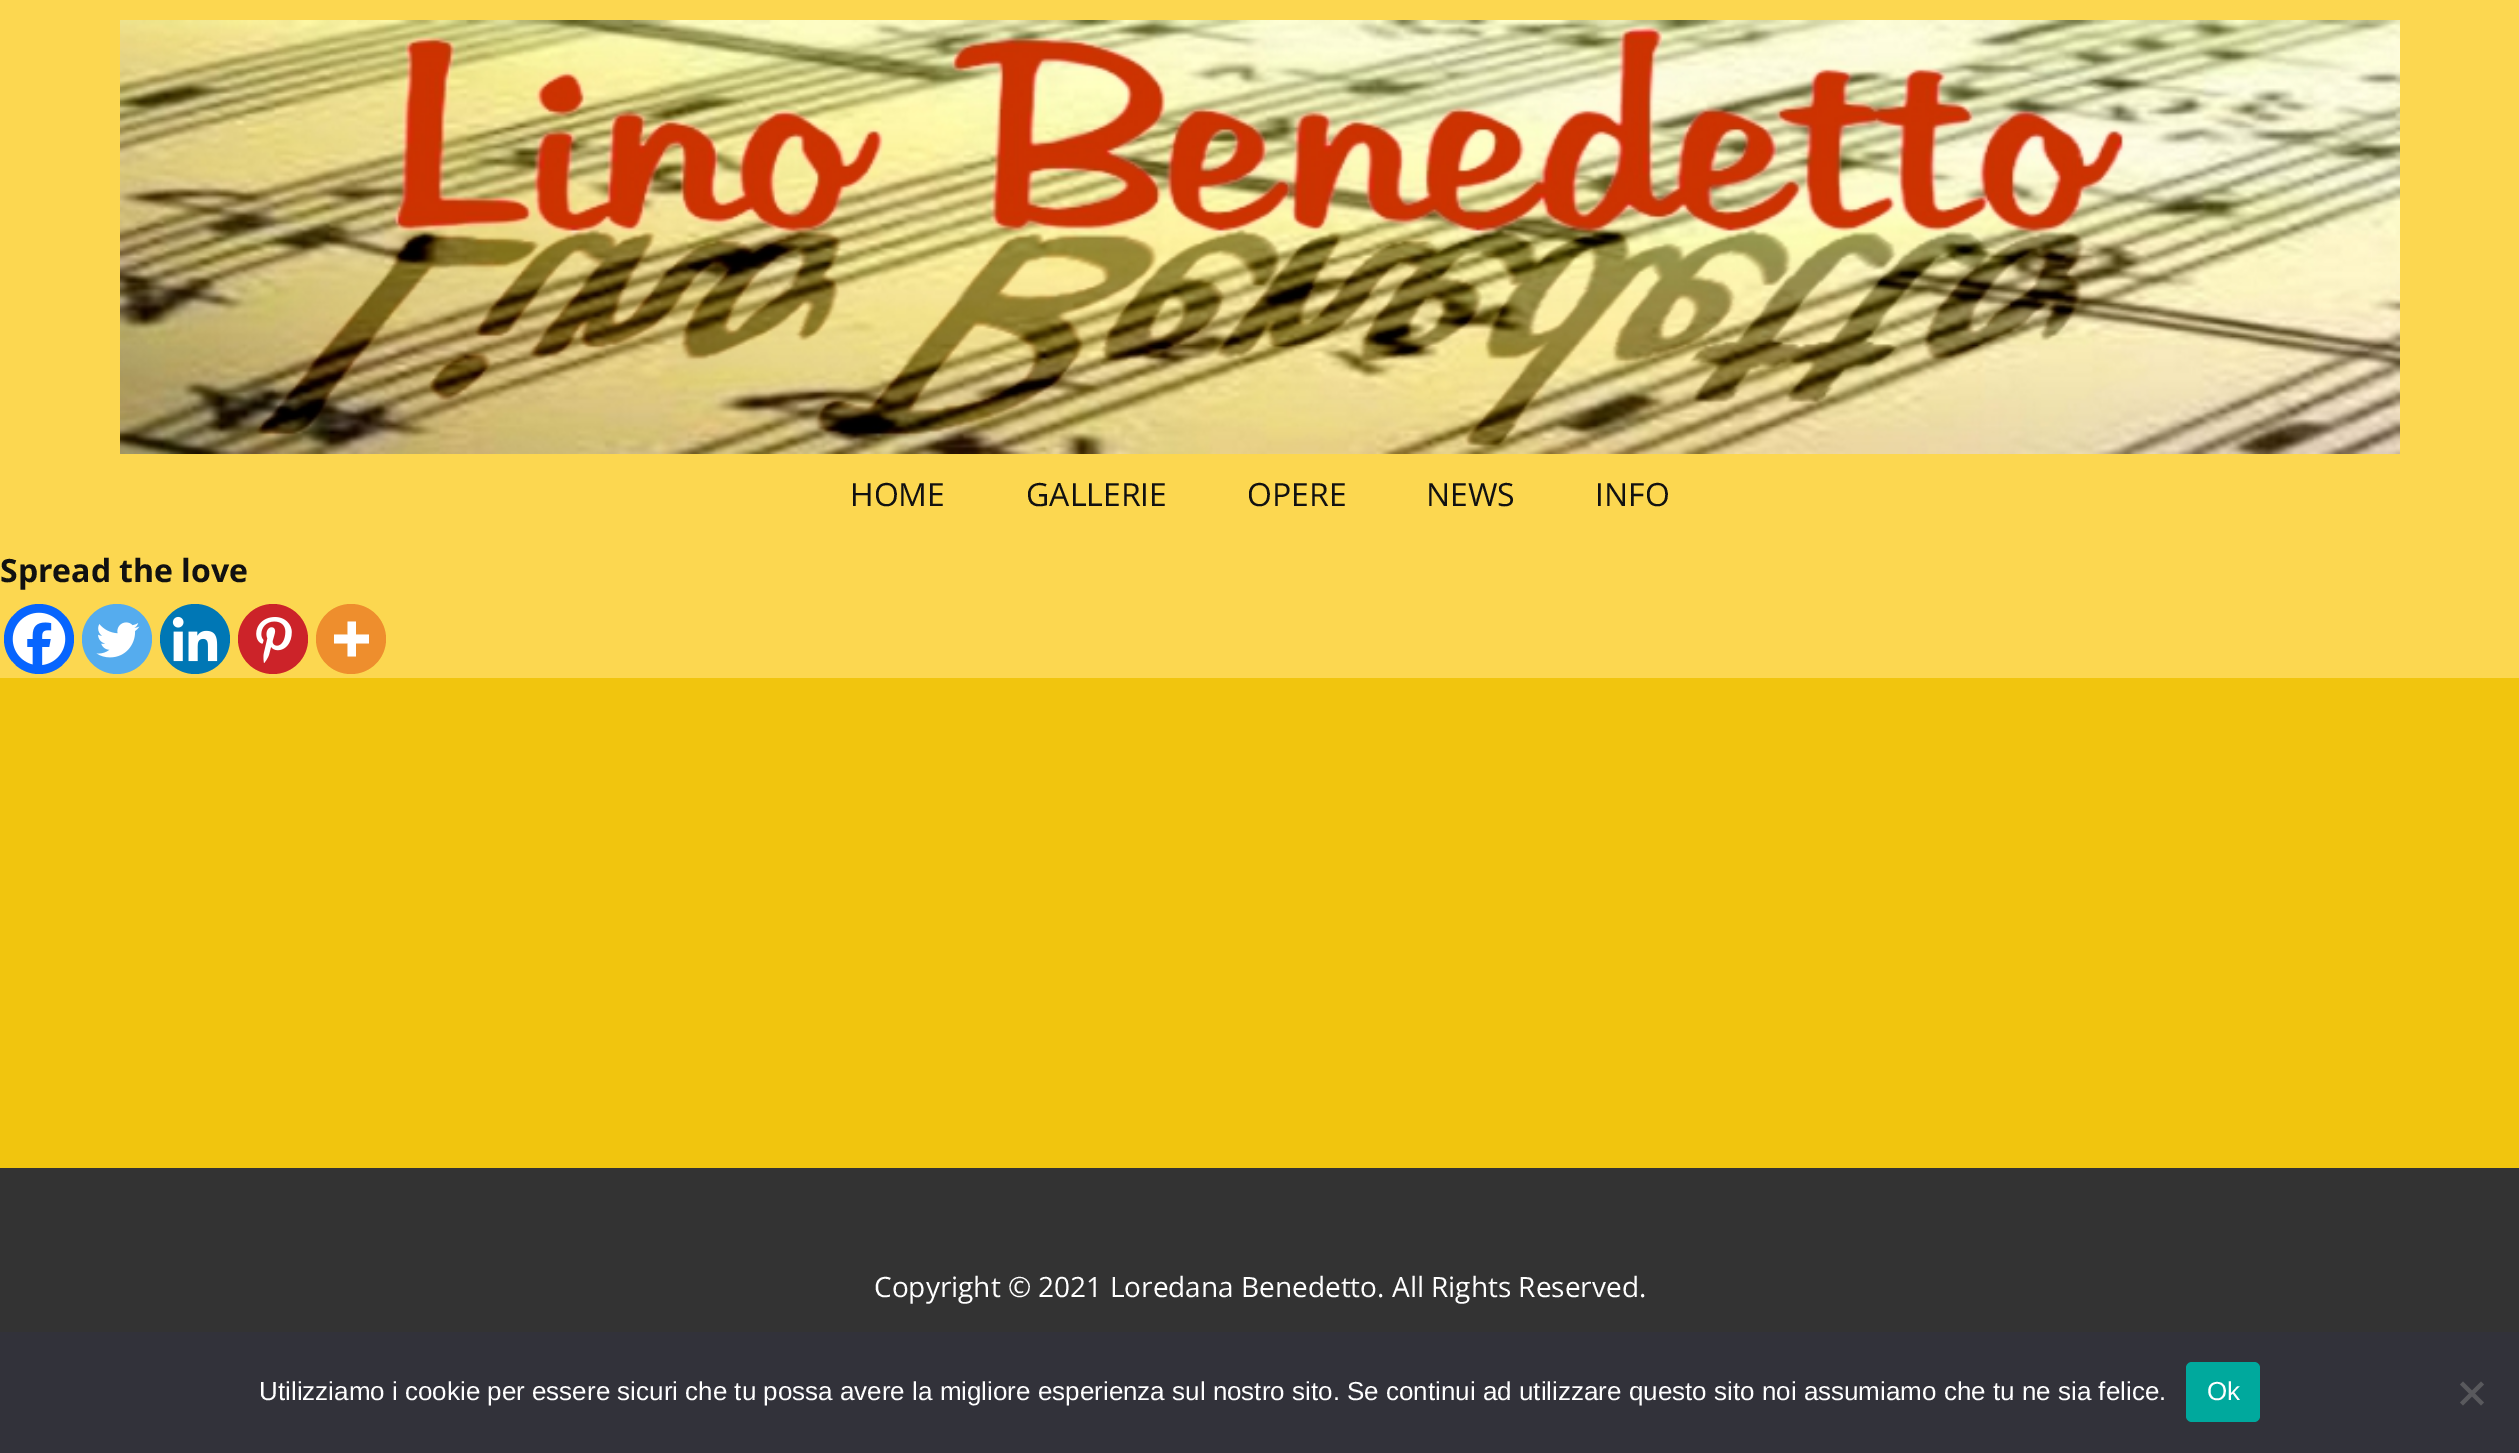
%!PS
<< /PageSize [2519 1453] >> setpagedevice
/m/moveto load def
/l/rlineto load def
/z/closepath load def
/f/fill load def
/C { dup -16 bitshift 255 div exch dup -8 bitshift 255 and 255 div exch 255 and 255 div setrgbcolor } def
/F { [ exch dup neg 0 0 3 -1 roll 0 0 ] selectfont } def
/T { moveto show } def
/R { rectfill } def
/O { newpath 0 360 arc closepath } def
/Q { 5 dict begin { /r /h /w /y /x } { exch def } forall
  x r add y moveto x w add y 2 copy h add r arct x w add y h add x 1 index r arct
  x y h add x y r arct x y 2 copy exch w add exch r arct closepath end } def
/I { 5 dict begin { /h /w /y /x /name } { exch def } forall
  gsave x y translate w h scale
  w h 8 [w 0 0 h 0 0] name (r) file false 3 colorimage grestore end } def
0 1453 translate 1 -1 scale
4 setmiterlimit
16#FCD750 C
0 0 2519 1453 R
(1.rgb) 120 20 2280 434 I
/OpenSans-Regular 32 F
16#111111 C
(HOME) 850 506 T
(GALLERIE) 1026 506 T
(OPERE) 1247 506 T
(NEWS) 1426 506 T
(INFO) 1595 506 T
/OpenSans-Bold 32 F
(Spread the love) 0 582 T
16#0765FE C
39 639 35 O f
(2.rgb) 12 612 54 53 I
16#55ACEE C
117 639 35 O f
(3.rgb) 96 622 44 36 I
16#0077B5 C
195 639 35 O f
(4.rgb) 172 616 46 46 I
16#CC2329 C
273 639 35 O f
(5.rgb) 256 617 36 46 I
16#EE8E2D C
351 639 35 O f
16#FFFFFF C
356 634.5 m 0 -13 l -8.5 0 l 0 13 l -13.5 0 l 0 9 l 13.5 0 l 0 13 l 8.5 0 l 0 -13 l 13 0 l 0 -9 l z eofill
16#F1C50E C
0 678 2519 490 R
16#333333 C
0 1168 2519 164 R
/OpenSans-Regular 28 F
16#FFFFFF C
(Copyright © 2021 Loredana Benedetto. All Rights Reserved.) 874 1297 T
16#32323A C
0 1332 2519 121 R
/LiberationSans-Regular 26 F
16#FFFFFF C
(Utilizziamo i cookie per essere sicuri che tu possa avere la migliore esperienza sul nostro sito. Se continui ad utilizzare questo sito noi assumiamo che tu ne sia felice.) 259 1400 T
16#00A99D C
2186 1362 74 60 6 Q f
16#FFFFFF C
(Ok) 2207 1400 T
16#59595D C
2481 1381.5 m 3 3 l -21 21 l -3 -3 l z f
2460 1384.5 m 3 -3 l 21 21 l -3 3 l z f
showpage
